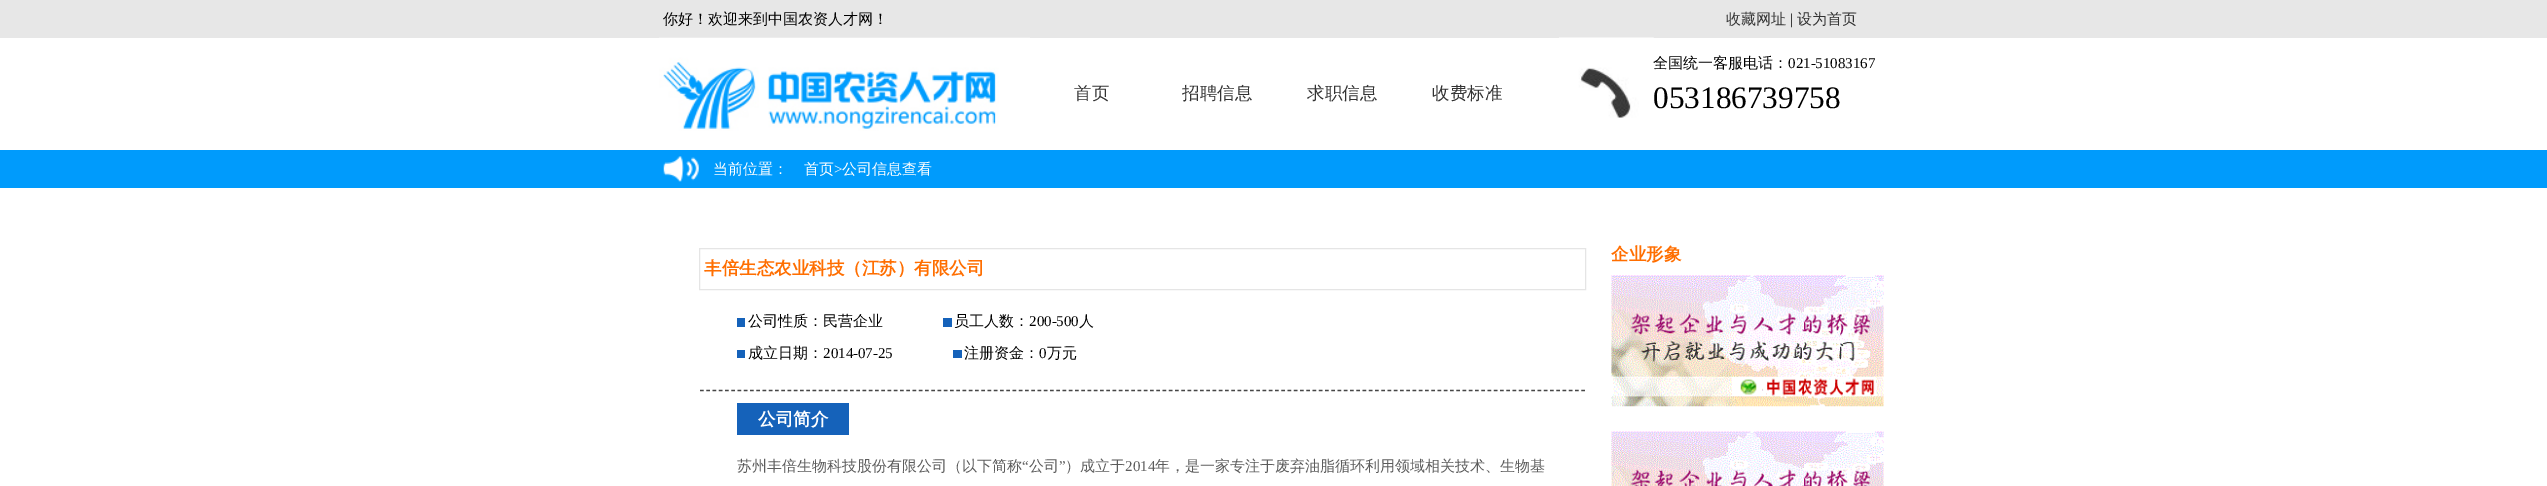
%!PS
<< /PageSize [2547 486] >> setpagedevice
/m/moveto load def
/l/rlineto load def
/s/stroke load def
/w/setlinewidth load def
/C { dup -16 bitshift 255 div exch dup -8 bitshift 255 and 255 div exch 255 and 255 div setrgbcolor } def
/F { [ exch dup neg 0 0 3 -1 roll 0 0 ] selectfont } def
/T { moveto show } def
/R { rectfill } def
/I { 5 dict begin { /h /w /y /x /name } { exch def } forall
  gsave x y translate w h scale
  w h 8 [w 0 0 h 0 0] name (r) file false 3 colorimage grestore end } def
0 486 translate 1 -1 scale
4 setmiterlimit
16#FFFFFF C
0 0 2547 486 R
16#E7E7E7 C
0 0 2547 38 R
/WenQuanYiZenHei-Medium 15 F
16#000000 C
(你好！欢迎来到中国农资人才网！) 663 24 T
16#333333 C
(收藏网址) 1726 24 T
/LiberationSerif-Regular 15 F
16#000000 C
(|) 1790 24 T
/WenQuanYiZenHei-Medium 15 F
16#333333 C
(设为首页) 1797 24 T
(1.rgb) 659 37 371 94 I
/WenQuanYiZenHei-Medium 17.5 F
(首页) 1074 99 T
(招聘信息) 1182 99 T
(求职信息) 1307 99 T
(收费标准) 1432 99 T
(2.rgb) 1559 37 95 81 I
/WenQuanYiZenHei-Medium 15 F
16#000000 C
(全国统一客服电话：) 1653 68 T
/LiberationSerif-Regular 15 F
(021-51083167) 1788 68 T
/LiberationSerif-Regular 31.25 F
(053186739758) 1653 108 T
16#009BFC C
0 150 2547 38 R
(3.rgb) 663 156 36 26 I
/WenQuanYiZenHei-Medium 15 F
16#FFFFFF C
(当前位置：) 713 174 T
(首页) 804 174 T
/LiberationSerif-Regular 15 F
(>) 834 174 T
/WenQuanYiZenHei-Medium 15 F
(公司信息查看) 842 174 T
/WenQuanYiZenHei-Bold 17.5 F
16#FF6E00 C
(企业形象) 1611 260 T
(4.rgb) 1611 275 273 132 I
(5.rgb) 1611 431 273 55 I
16#E5E5E5 C
699.5 248.5 886 41 rectstroke
16#FF6E00 C
(丰倍生态农业科技（江苏）有限公司) 704 274 T
16#1562BA C
737 318 8 9 R
/WenQuanYiZenHei-Medium 15 F
16#000000 C
(公司性质：民营企业) 748 326 T
16#1562BA C
943 318 9 9 R
16#000000 C
(员工人数：) 954 326 T
/LiberationSerif-Regular 15 F
(200-500) 1029 326 T
/WenQuanYiZenHei-Medium 15 F
(人) 1079 326 T
16#1562BA C
737 350 8 8 R
16#000000 C
(成立日期：) 748 358 T
/LiberationSerif-Regular 15 F
(2014-07-25) 823 358 T
16#1562BA C
953 350 9 8 R
/WenQuanYiZenHei-Medium 15 F
16#000000 C
(注册资金：) 964 358 T
/LiberationSerif-Regular 15 F
(0) 1039 358 T
/WenQuanYiZenHei-Medium 15 F
(万元) 1047 358 T
16#464646 C
1.2 w
[3.75 2.5] 0 setdash
700 390.5 m 885 0 l s
16#1562BA C
737 403 112 32 R
/WenQuanYiZenHei-Bold 17.5 F
16#FFFFFF C
(公司简介) 758 425 T
/WenQuanYiZenHei-Medium 15 F
16#5C5C5C C
(苏州丰倍生物科技股份有限公司（以下简称) 737 471 T
/LiberationSerif-Regular 15 F
(“) 1022 471 T
/WenQuanYiZenHei-Medium 15 F
(公司) 1029 471 T
/LiberationSerif-Regular 15 F
(”) 1059 471 T
/WenQuanYiZenHei-Medium 15 F
(）成立于) 1065 471 T
/LiberationSerif-Regular 15 F
(2014) 1125 471 T
/WenQuanYiZenHei-Medium 15 F
(年，是一家专注于废弃油脂循环利用领域相关技术、生物基) 1155 471 T
showpage
